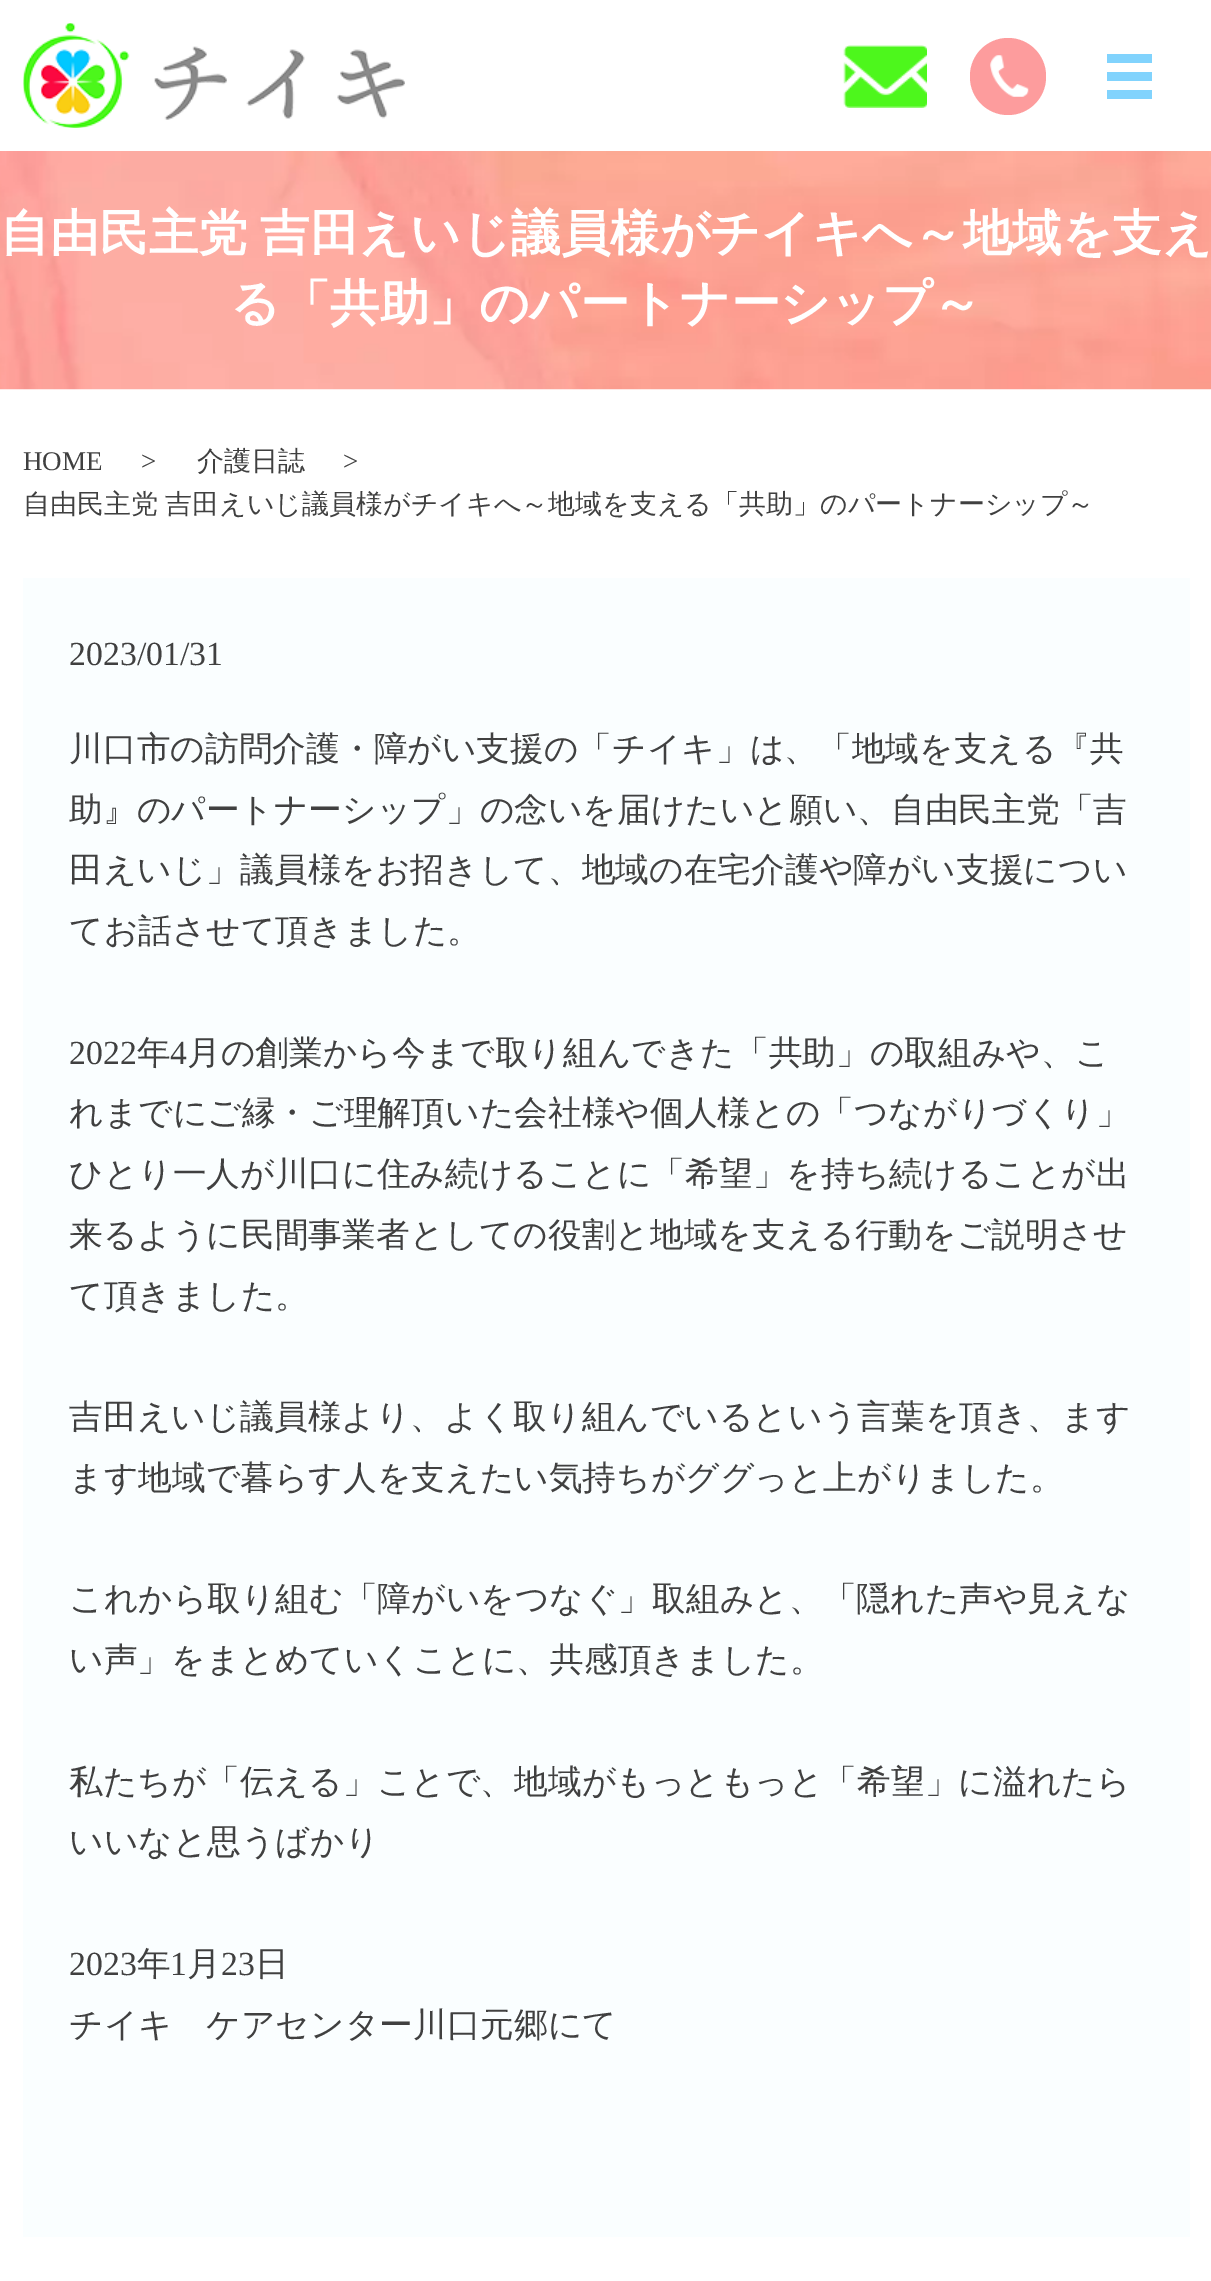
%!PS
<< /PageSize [1211 2281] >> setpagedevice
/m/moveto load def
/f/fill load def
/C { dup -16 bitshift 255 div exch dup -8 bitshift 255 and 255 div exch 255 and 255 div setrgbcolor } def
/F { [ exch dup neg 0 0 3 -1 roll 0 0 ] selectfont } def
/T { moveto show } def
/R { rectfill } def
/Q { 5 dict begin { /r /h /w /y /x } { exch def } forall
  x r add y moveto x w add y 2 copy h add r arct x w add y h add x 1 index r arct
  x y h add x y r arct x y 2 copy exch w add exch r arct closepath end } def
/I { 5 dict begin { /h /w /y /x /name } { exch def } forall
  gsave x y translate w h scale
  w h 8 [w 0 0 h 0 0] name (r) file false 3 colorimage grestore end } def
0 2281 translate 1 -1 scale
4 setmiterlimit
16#FFFFFF C
0 0 1211 2281 R
(1.rgb) 23 23 382 105 I
(2.rgb) 843 45 84 63 I
16#FD9C9D C
970 38 76 77 38 Q f
(3.rgb) 990 55 39 42 I
16#81D3FD C
1107 54 45 9 R
1107 72 45 9 R
1107 90 45 9 R
(4.rgb) 0 151 1211 239 I
/WenQuanYiZenHei-Bold 49.5 F
16#FFFFFF C
0 250 m -2 0 32 (自由民主党 吉田えいじ議員様がチイキへ～地域を支え) widthshow
(る「共助」のパートナーシップ～) 230 320 T
/LiberationSerif-Regular 27 F
16#404040 C
(HOME) 23 470 T
(>) 141 470 T
/WenQuanYiZenHei-Medium 27 F
(介護日誌) 197 470 T
/LiberationSerif-Regular 27 F
(>) 343 470 T
/WenQuanYiZenHei-Medium 27 F
23 513 m -1 0 32 (自由民主党 吉田えいじ議員様がチイキへ～地域を支える「共助」のパートナーシップ～) widthshow
16#FAFEFF C
23 578 1167 1659 R
/LiberationSerif-Regular 33.75 F
16#404040 C
(2023/01/31) 69 665 T
/WenQuanYiZenHei-Medium 33.75 F
(川口市の訪問介護・障がい支援の「チイキ」は、「地域を支える『共) 69 760 T
(助』のパートナーシップ」の念いを届けたいと願い、自由民主党「吉) 69 821 T
(田えいじ」議員様をお招きして、地域の在宅介護や障がい支援につい) 69 881 T
(てお話させて頂きました。) 69 942 T
/LiberationSerif-Regular 33.75 F
(2022) 69 1064 T
/WenQuanYiZenHei-Medium 33.75 F
(年) 137 1064 T
/LiberationSerif-Regular 33.75 F
(4) 170 1064 T
/WenQuanYiZenHei-Medium 33.75 F
(月の創業から今まで取り組んできた「共助」の取組みや、こ) 187 1064 T
(れまでにご縁・ご理解頂いた会社様や個人様との「つながりづくり」) 69 1124 T
(ひとり一人が川口に住み続けることに「希望」を持ち続けることが出) 69 1185 T
(来るように民間事業者としての役割と地域を支える行動をご説明させ) 69 1246 T
(て頂きました。) 69 1307 T
(吉田えいじ議員様より、よく取り組んでいるという言葉を頂き、ます) 69 1428 T
(ます地域で暮らす人を支えたい気持ちがググっと上がりました。) 69 1489 T
(これから取り組む「障がいをつなぐ」取組みと、「隠れた声や見えな) 69 1610 T
(い声」をまとめていくことに、共感頂きました。) 69 1671 T
(私たちが「伝える」ことで、地域がもっともっと「希望」に溢れたら) 69 1793 T
(いいなと思うばかり) 69 1853 T
/LiberationSerif-Regular 33.75 F
(2023) 69 1975 T
/WenQuanYiZenHei-Medium 33.75 F
(年) 137 1975 T
/LiberationSerif-Regular 33.75 F
(1) 170 1975 T
/WenQuanYiZenHei-Medium 33.75 F
(月) 187 1975 T
/LiberationSerif-Regular 33.75 F
(23) 221 1975 T
/WenQuanYiZenHei-Medium 33.75 F
(日) 255 1975 T
(チイキ　ケアセンター川口元郷にて) 69 2036 T
showpage
